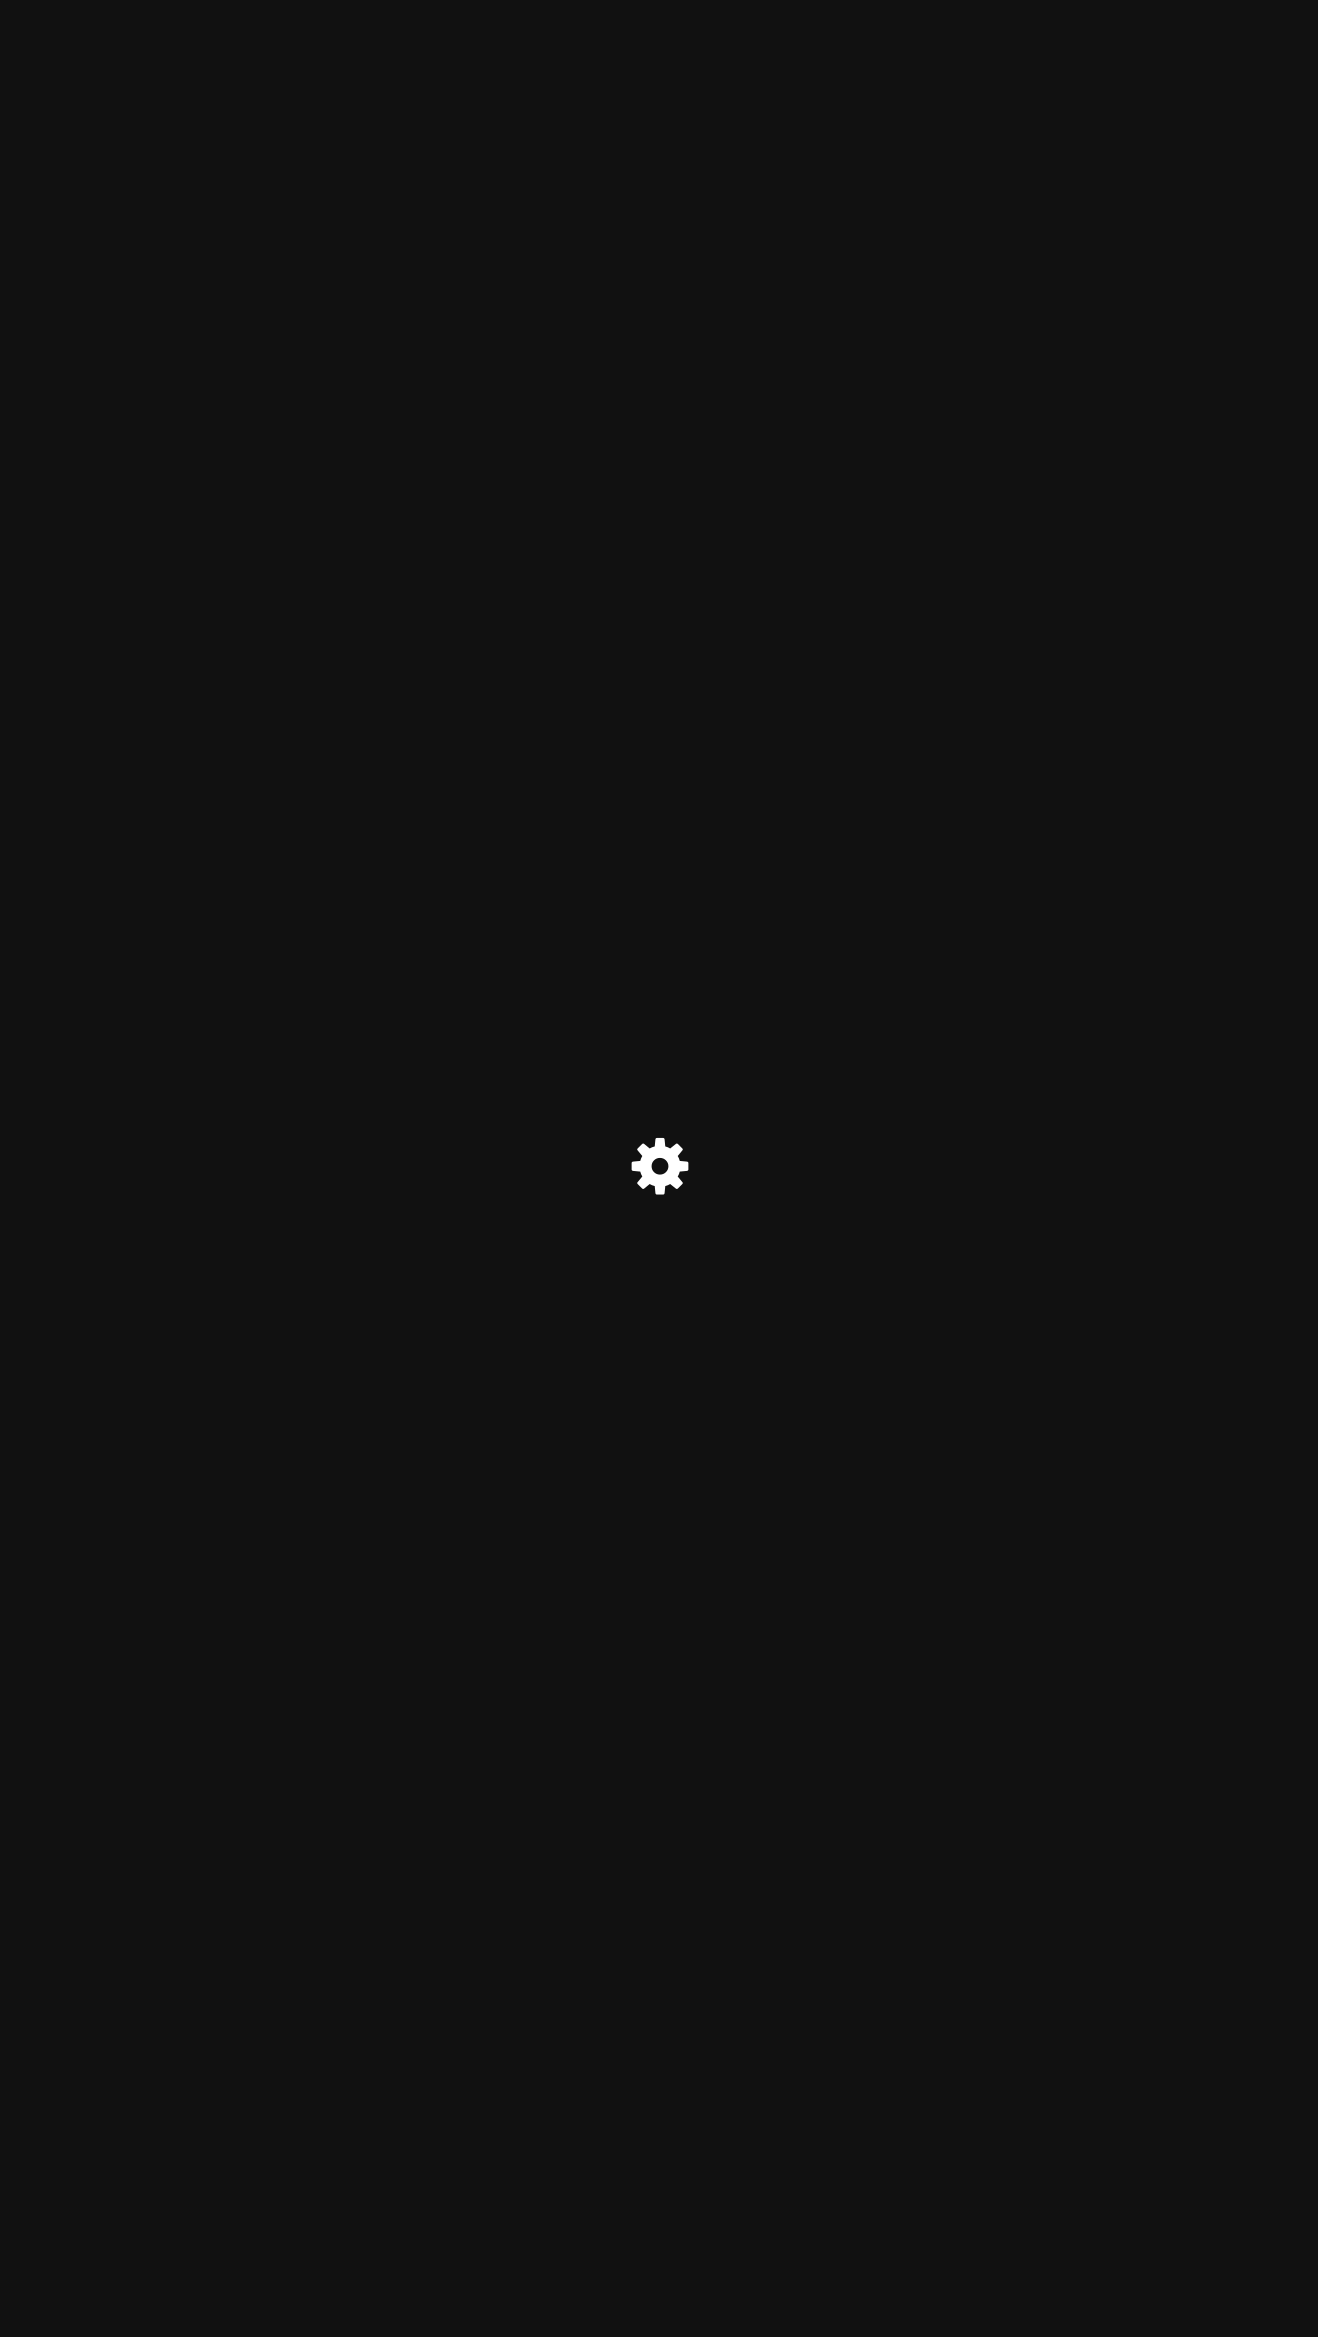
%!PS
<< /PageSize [1318 2337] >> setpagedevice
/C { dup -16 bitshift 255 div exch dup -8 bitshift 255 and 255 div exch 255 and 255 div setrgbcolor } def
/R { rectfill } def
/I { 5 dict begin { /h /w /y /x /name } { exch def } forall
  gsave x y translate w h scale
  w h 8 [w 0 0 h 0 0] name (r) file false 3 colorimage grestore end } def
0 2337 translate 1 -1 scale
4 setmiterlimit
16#111111 C
0 0 1318 2337 R
(1.rgb) 631 1137 58 58 I
showpage
